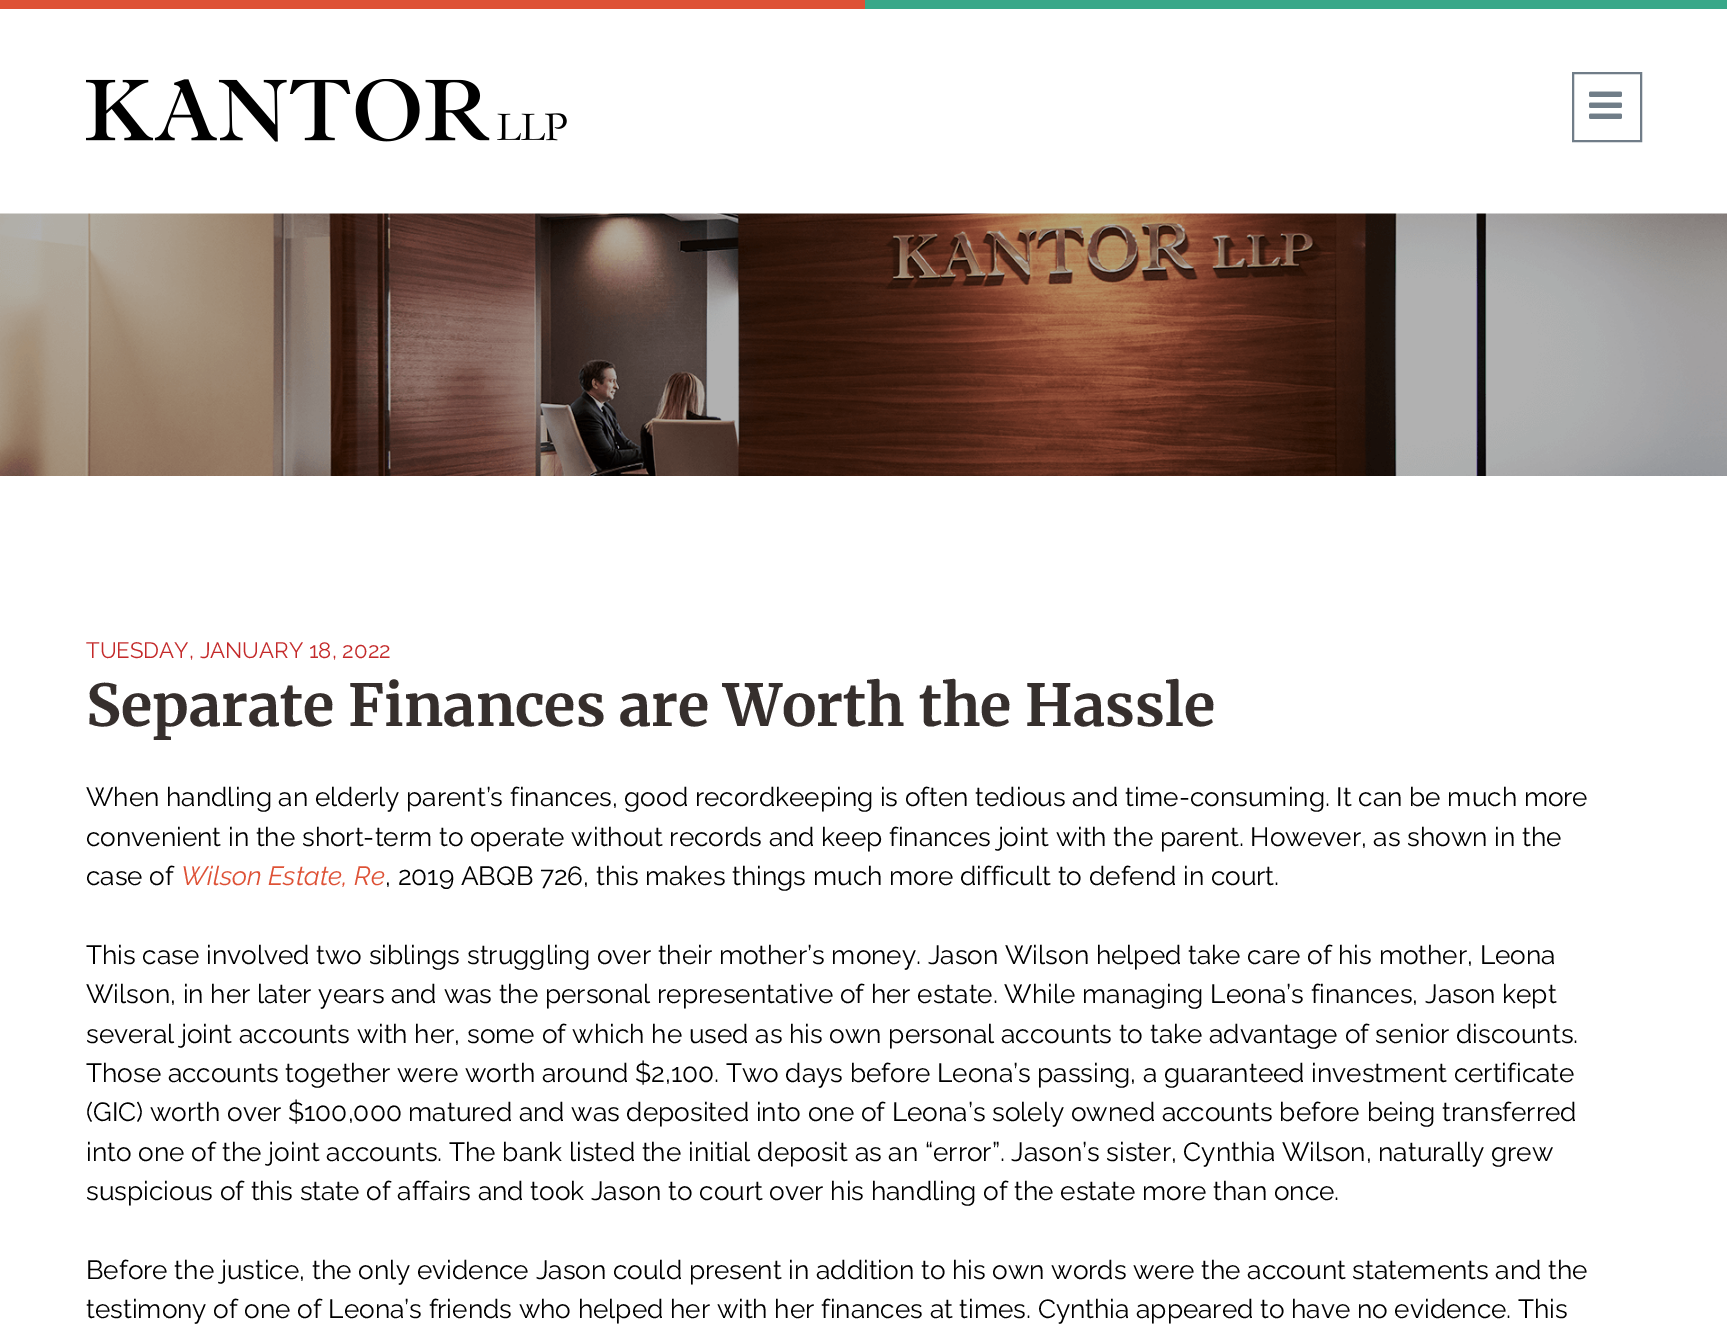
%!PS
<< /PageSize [1727 1334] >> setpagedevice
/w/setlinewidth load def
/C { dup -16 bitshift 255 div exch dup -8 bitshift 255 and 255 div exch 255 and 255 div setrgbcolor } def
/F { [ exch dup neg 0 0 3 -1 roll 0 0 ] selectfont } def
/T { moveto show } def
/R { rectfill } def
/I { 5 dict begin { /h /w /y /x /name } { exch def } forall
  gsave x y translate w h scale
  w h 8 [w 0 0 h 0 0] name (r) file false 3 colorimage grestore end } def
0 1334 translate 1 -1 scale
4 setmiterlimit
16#FFFFFF C
0 0 1727 1334 R
16#DE5135 C
0 0 865 9 R
16#38A889 C
865 0 862 9 R
(1.rgb) 86 79 481 63 I
16#707D88 C
2 w
1573 73 68 68 rectstroke
(2.rgb) 1589 91 33 28 I
(3.rgb) 0 213 1727 263 I
/Raleway-Regular 22.25 F
16#C42929 C
(TUESDAY, JANUARY 18, 2022) 86 658 T
/Merriweather-Bold 57.75 F
16#362F2D C
(Separate Finances are Worth the Hassle) 86 726 T
/Raleway-Regular 26.25 F
16#000000 C
(When handling an elderly parent’s finances, good recordkeeping is often tedious and time-consuming. It can be much more) 86 806 T
(convenient in the short-term to operate without records and keep finances joint with the parent. However, as shown in the) 86 846 T
(case of) 86 885 T
/Raleway-Italic 26.25 F
16#DE5135 C
(Wilson Estate, Re) 181 885 T
/Raleway-Regular 26.25 F
16#000000 C
(, 2019 ABQB 726, this makes things much more difficult to defend in court.) 385 885 T
(This case involved two siblings struggling over their mother’s money. Jason Wilson helped take care of his mother, Leona) 86 964 T
(Wilson, in her later years and was the personal representative of her estate. While managing Leona’s finances, Jason kept) 86 1003 T
(several joint accounts with her, some of which he used as his own personal accounts to take advantage of senior discounts.) 86 1043 T
(Those accounts together were worth around $2,100. Two days before Leona’s passing, a guaranteed investment certificate) 86 1082 T
(\(GIC\) worth over $100,000 matured and was deposited into one of Leona’s solely owned accounts before being transferred) 86 1121 T
(into one of the joint accounts. The bank listed the initial deposit as an “error”. Jason’s sister, Cynthia Wilson, naturally grew) 86 1161 T
(suspicious of this state of affairs and took Jason to court over his handling of the estate more than once.) 86 1200 T
(Before the justice, the only evidence Jason could present in addition to his own words were the account statements and the) 86 1279 T
(testimony of one of Leona’s friends who helped her with her finances at times. Cynthia appeared to have no evidence. This) 86 1318 T
showpage
